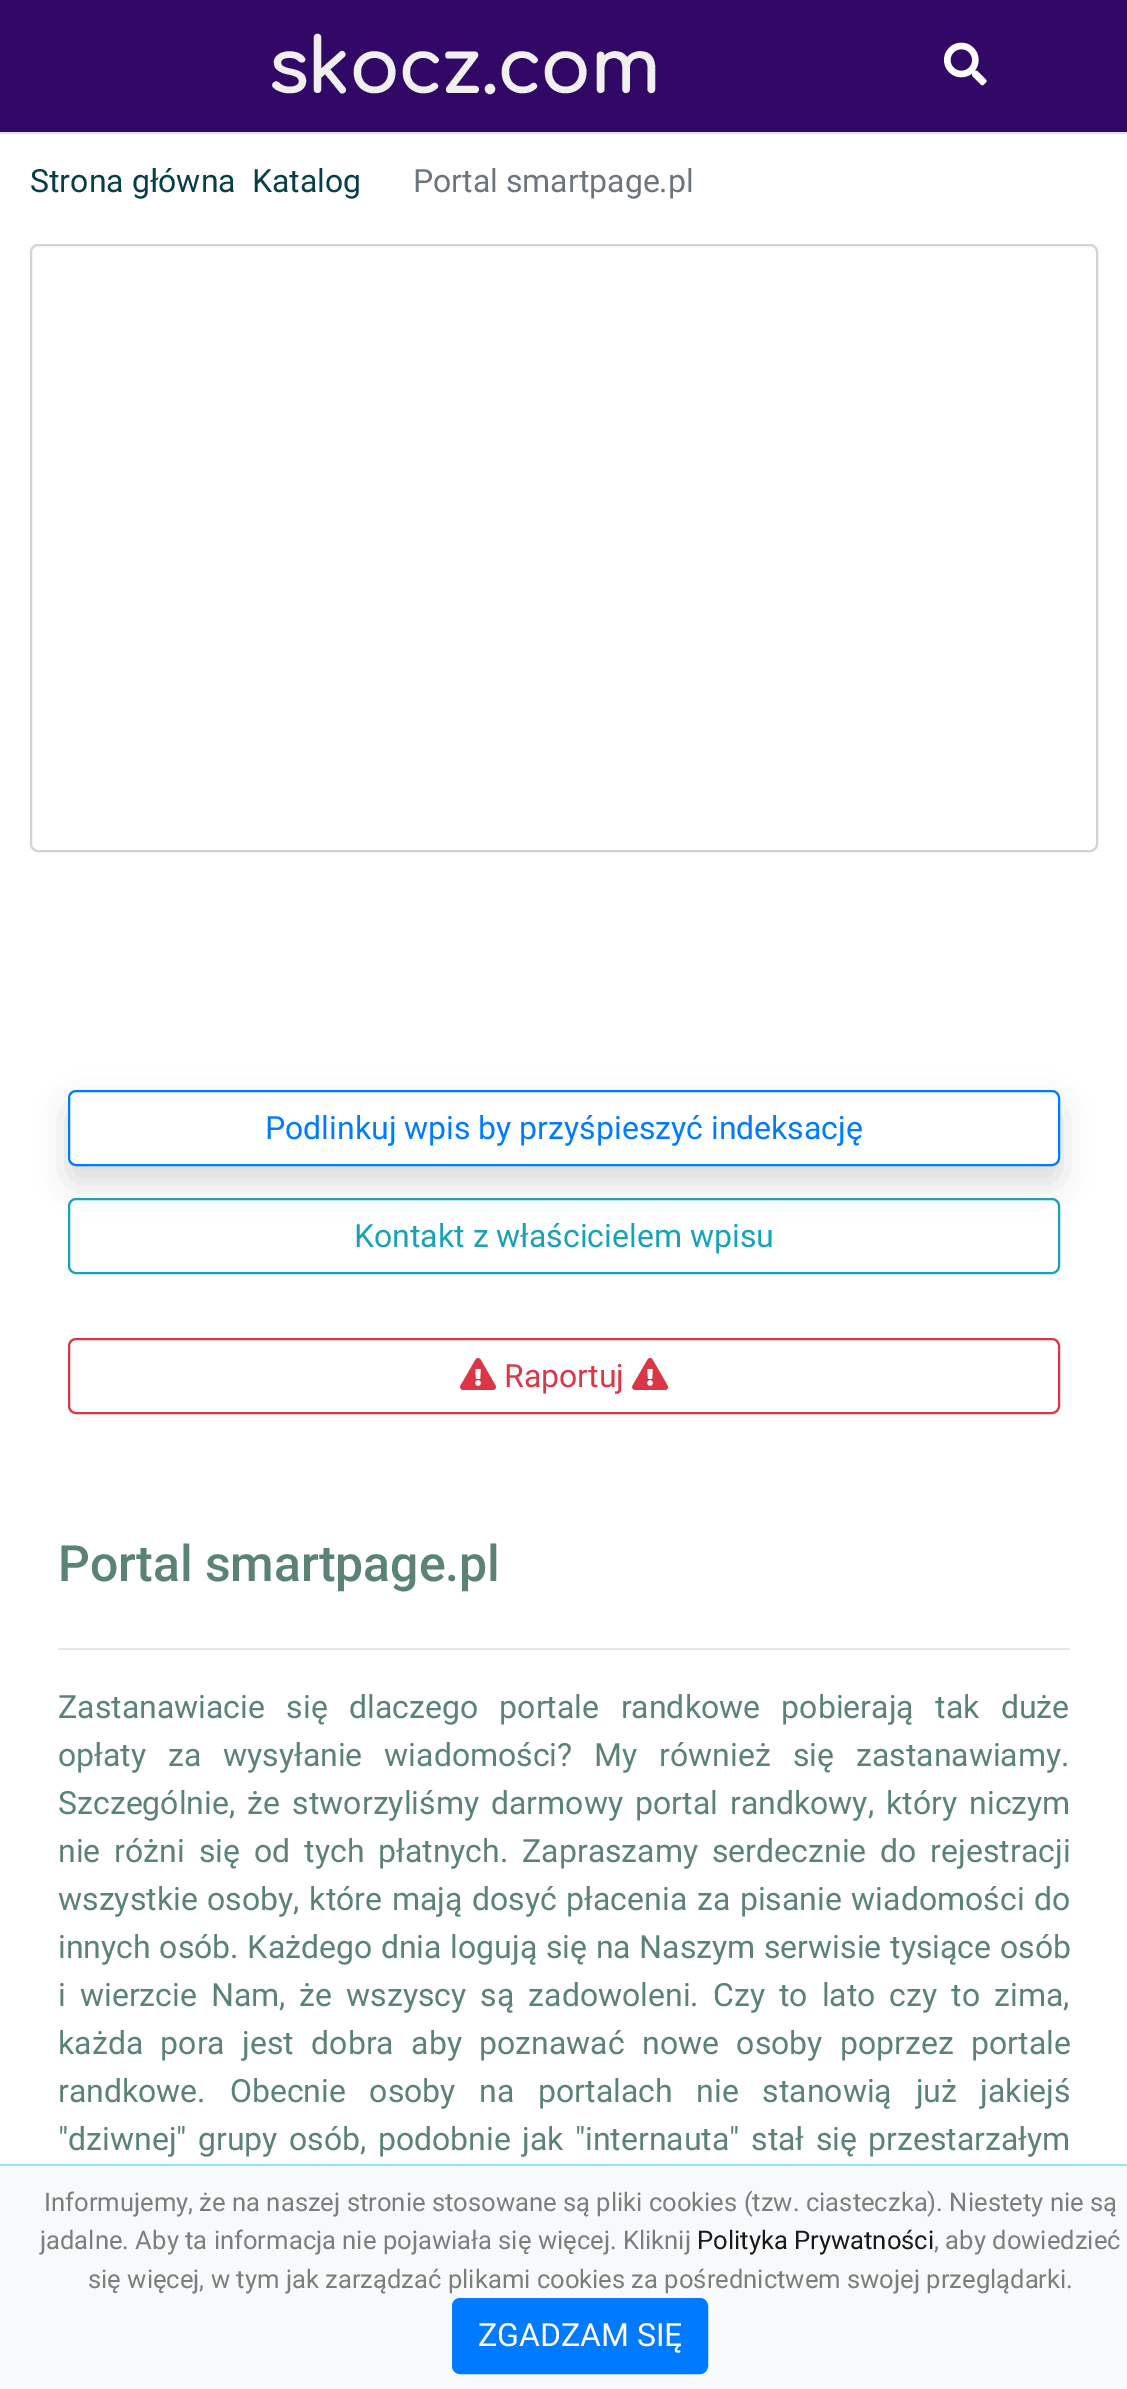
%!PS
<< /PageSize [1127 2389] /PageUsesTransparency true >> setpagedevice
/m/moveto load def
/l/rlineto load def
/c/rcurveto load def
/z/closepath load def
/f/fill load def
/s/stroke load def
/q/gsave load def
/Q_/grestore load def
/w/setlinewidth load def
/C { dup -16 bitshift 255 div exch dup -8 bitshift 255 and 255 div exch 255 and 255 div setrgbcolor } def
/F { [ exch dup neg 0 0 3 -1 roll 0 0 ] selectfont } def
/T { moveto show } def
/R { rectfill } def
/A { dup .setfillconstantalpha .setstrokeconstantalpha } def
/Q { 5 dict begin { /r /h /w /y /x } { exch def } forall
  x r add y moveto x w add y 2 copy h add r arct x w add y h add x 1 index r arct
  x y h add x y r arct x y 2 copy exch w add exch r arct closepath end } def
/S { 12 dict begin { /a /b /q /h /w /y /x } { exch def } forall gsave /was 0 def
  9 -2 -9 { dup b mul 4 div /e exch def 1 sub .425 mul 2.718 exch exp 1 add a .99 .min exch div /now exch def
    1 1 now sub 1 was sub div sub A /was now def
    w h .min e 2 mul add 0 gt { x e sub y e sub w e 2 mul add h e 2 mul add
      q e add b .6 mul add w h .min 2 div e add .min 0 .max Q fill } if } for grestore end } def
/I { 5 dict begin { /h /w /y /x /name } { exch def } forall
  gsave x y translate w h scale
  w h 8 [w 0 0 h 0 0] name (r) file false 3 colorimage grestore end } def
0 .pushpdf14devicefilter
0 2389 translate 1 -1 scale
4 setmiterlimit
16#FFFFFF C
0 0 1127 2389 R
16#320866 C
0 0 1127 132 R
16#DEE2E6 C
0 132 1127 2 R
/Comfortaa-Bold 76 F
16#F0F0F0 C
268 93 m -2 0 (skocz.com) ashow
(1.rgb) 944 42 43 44 I
/Roboto-Regular 32 F
16#073F48 C
(Strona główna) 30 192 T
(Katalog) 252 192 T
16#6C757D C
(Portal smartpage.pl) 413 192 T
16#D1D3D4 C
2 w
31 245 1066 606 7 Q s
q
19 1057 m 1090 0 l 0 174 l -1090 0 l z 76 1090 m 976 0 l 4.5 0 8 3.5 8 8 c 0 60 l 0 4.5 -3.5 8 -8 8 c -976 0 l -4.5 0 -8 -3.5 -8 -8 c 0 -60 l 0 -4.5 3.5 -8 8 -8 c z eoclip newpath
16#000000 C
68 1106 992 76 8 16 .15 S
Q_
16#007BFF C
69 1091 990 74 7 Q s
(Podlinkuj wpis by przyśpieszyć indeksację) 265 1139 T
16#17A2B8 C
69 1199 990 74 7 Q s
(Kontakt z właścicielem wpisu) 354 1247 T
16#DC3545 C
69 1339 990 74 7 Q s
(2.rgb) 460 1358 37 32 I
(Raportuj) 504 1387 T
(2.rgb) 632 1358 37 32 I
/Roboto-Medium 50 F
16#5B8375 C
(Portal smartpage.pl) 58 1581 T
16#E6E6E6 C
58 1648 1012 2 R
/Roboto-Regular 32 F
16#5B8375 C
58 1718 m 13.5 0 32 (Zastanawiacie się dlaczego portale randkowe pobierają tak duże) widthshow
58 1766 m 14 0 32 (opłaty za wysyłanie wiadomości? My również się zastanawiamy.) widthshow
58 1814 m 4.25 0 32 (Szczególnie, że stworzyliśmy darmowy portal randkowy, który niczym) widthshow
58 1862 m 6 0 32 (nie różni się od tych płatnych. Zapraszamy serdecznie do rejestracji) widthshow
58 1910 m 1.75 0 32 (wszystkie osoby, które mają dosyć płacenia za pisanie wiadomości do) widthshow
58 1958 m .75 0 32 (innych osób. Każdego dnia logują się na Naszym serwisie tysiące osób) widthshow
58 2006 m 6.1 0 32 (i wierzcie Nam, że wszyscy są zadowoleni. Czy to lato czy to zima,) widthshow
58 2054 m 9.5 0 32 (każda pora jest dobra aby poznawać nowe osoby poprzez portale) widthshow
58 2102 m 15.75 0 32 (randkowe. Obecnie osoby na portalach nie stanowią już jakiejś) widthshow
58 2150 m 3.5 0 32 ("dziwnej" grupy osób, podobnie jak "internauta" stał się przestarzałym) widthshow
16#F8F9FA C
0 2166 1127 223 R
16#93E5F2 C
0 2164 1127 2 R
/Roboto-Regular 25.6 F
16#7C7D7D C
(Informujemy, że na naszej stronie stosowane są pliki cookies \(tzw. ciasteczka\). Niestety nie są) 44 2211 T
(jadalne. Aby ta informacja nie pojawiała się więcej. Kliknij) 40 2249 T
16#191919 C
(Polityka Prywatności) 697 2249 T
16#7C7D7D C
(, aby dowiedzieć) 934 2249 T
(się więcej, w tym jak zarządzać plikami cookies za pośrednictwem swojej przeglądarki.) 88 2288 T
16#007BFF C
453 2299 254 74 7 Q q f Q_
s
/Roboto-Regular 32 F
16#FFFFFF C
(ZGADZAM SIĘ) 478 2346 T
.poppdf14devicefilter showpage
